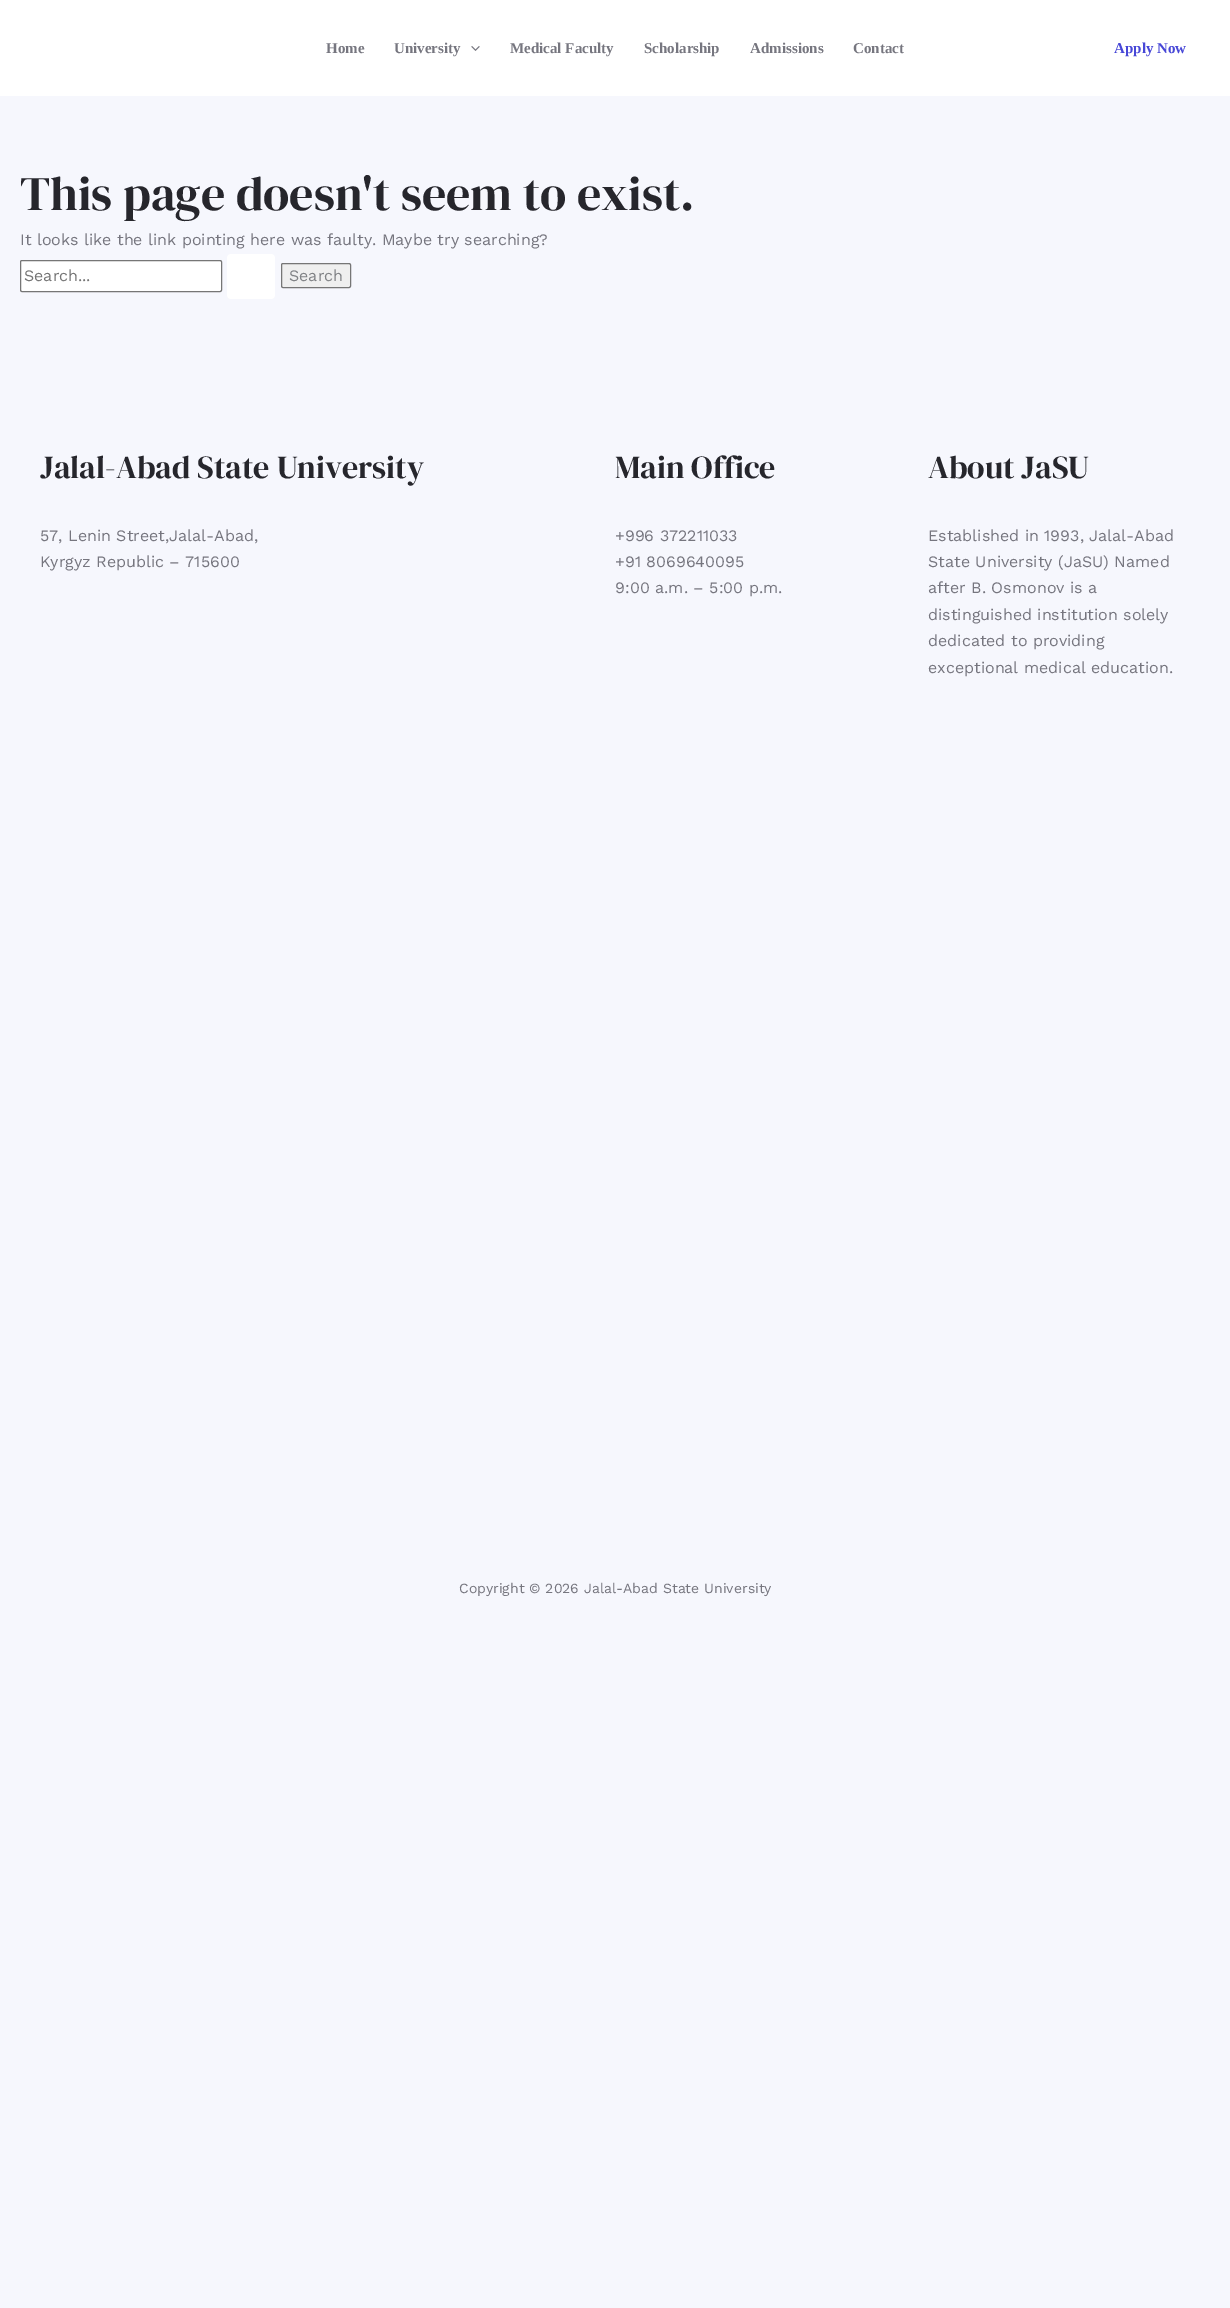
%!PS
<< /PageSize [1230 2308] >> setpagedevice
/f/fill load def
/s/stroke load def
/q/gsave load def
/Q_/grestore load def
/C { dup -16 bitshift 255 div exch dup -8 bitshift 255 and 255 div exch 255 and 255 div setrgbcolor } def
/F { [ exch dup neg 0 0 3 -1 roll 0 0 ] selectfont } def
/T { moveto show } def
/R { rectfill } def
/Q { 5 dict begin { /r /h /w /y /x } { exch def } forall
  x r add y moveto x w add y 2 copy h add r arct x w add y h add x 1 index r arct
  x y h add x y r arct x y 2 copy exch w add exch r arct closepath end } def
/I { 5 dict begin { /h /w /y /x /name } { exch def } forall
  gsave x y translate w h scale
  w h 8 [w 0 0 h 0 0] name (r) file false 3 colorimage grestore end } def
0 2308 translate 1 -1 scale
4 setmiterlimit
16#F6F7FD C
0 0 1230 2308 R
16#FFFFFF C
0 0 1230 96 R
/LiberationSerif-Bold 15 F
16#76767F C
(Home) 326 53 T
(University) 394 53 T
(1.rgb) 471 46 9 5 I
(Medical Faculty) 510 53 T
(Scholarship) 644 53 T
(Admissions) 750 53 T
(Contact) 853 53 T
16#4747D7 C
(Apply Now) 1114 53 T
/DMSerifDisplay-Regular 48 F
16#26262C C
(This page doesn't seem to exist.) 20 210 T
/WorkSans-Regular 16 F
16#76767F C
(It looks like the link pointing here was faulty. Maybe try searching?) 20 245 T
16#FFFFFF C
20.5 260.5 201 31 1.5 Q q f Q_
16#767676 C
s
16#757575 C
(Search...) 24 281 T
16#FFFFFF C
227 254 48 45 4 Q f
16#EFEFEF C
281.5 263.5 69 24 1.5 Q q f Q_
16#767676 C
s
16#808285 C
(Search) 289 281 T
/DMSerifDisplay-Regular 32 F
16#26262C C
(Jalal-Abad State University) 40 478 T
/WorkSans-Regular 16 F
16#76767F C
(57, Lenin Street,Jalal-Abad,) 40 541 T
(Kyrgyz Republic – 715600) 40 567 T
/DMSerifDisplay-Regular 32 F
16#26262C C
(Main Office) 615 478 T
/WorkSans-Regular 16 F
16#76767F C
(+996 372211033) 615 541 T
(+91 8069640095) 615 567 T
(9:00 a.m. – 5:00 p.m.) 615 593 T
/DMSerifDisplay-Regular 32 F
16#26262C C
(About JaSU) 928 478 T
/WorkSans-Regular 16 F
16#76767F C
(Established in 1993, Jalal-Abad) 928 541 T
(State University \(JaSU\) Named) 928 567 T
(after B. Osmonov is a) 928 593 T
(distinguished institution solely) 928 620 T
(dedicated to providing) 928 646 T
(exceptional medical education.) 928 673 T
/WorkSans-Regular 14 F
(Copyright © 2026 Jalal-Abad State University) 459 1593 T
showpage
